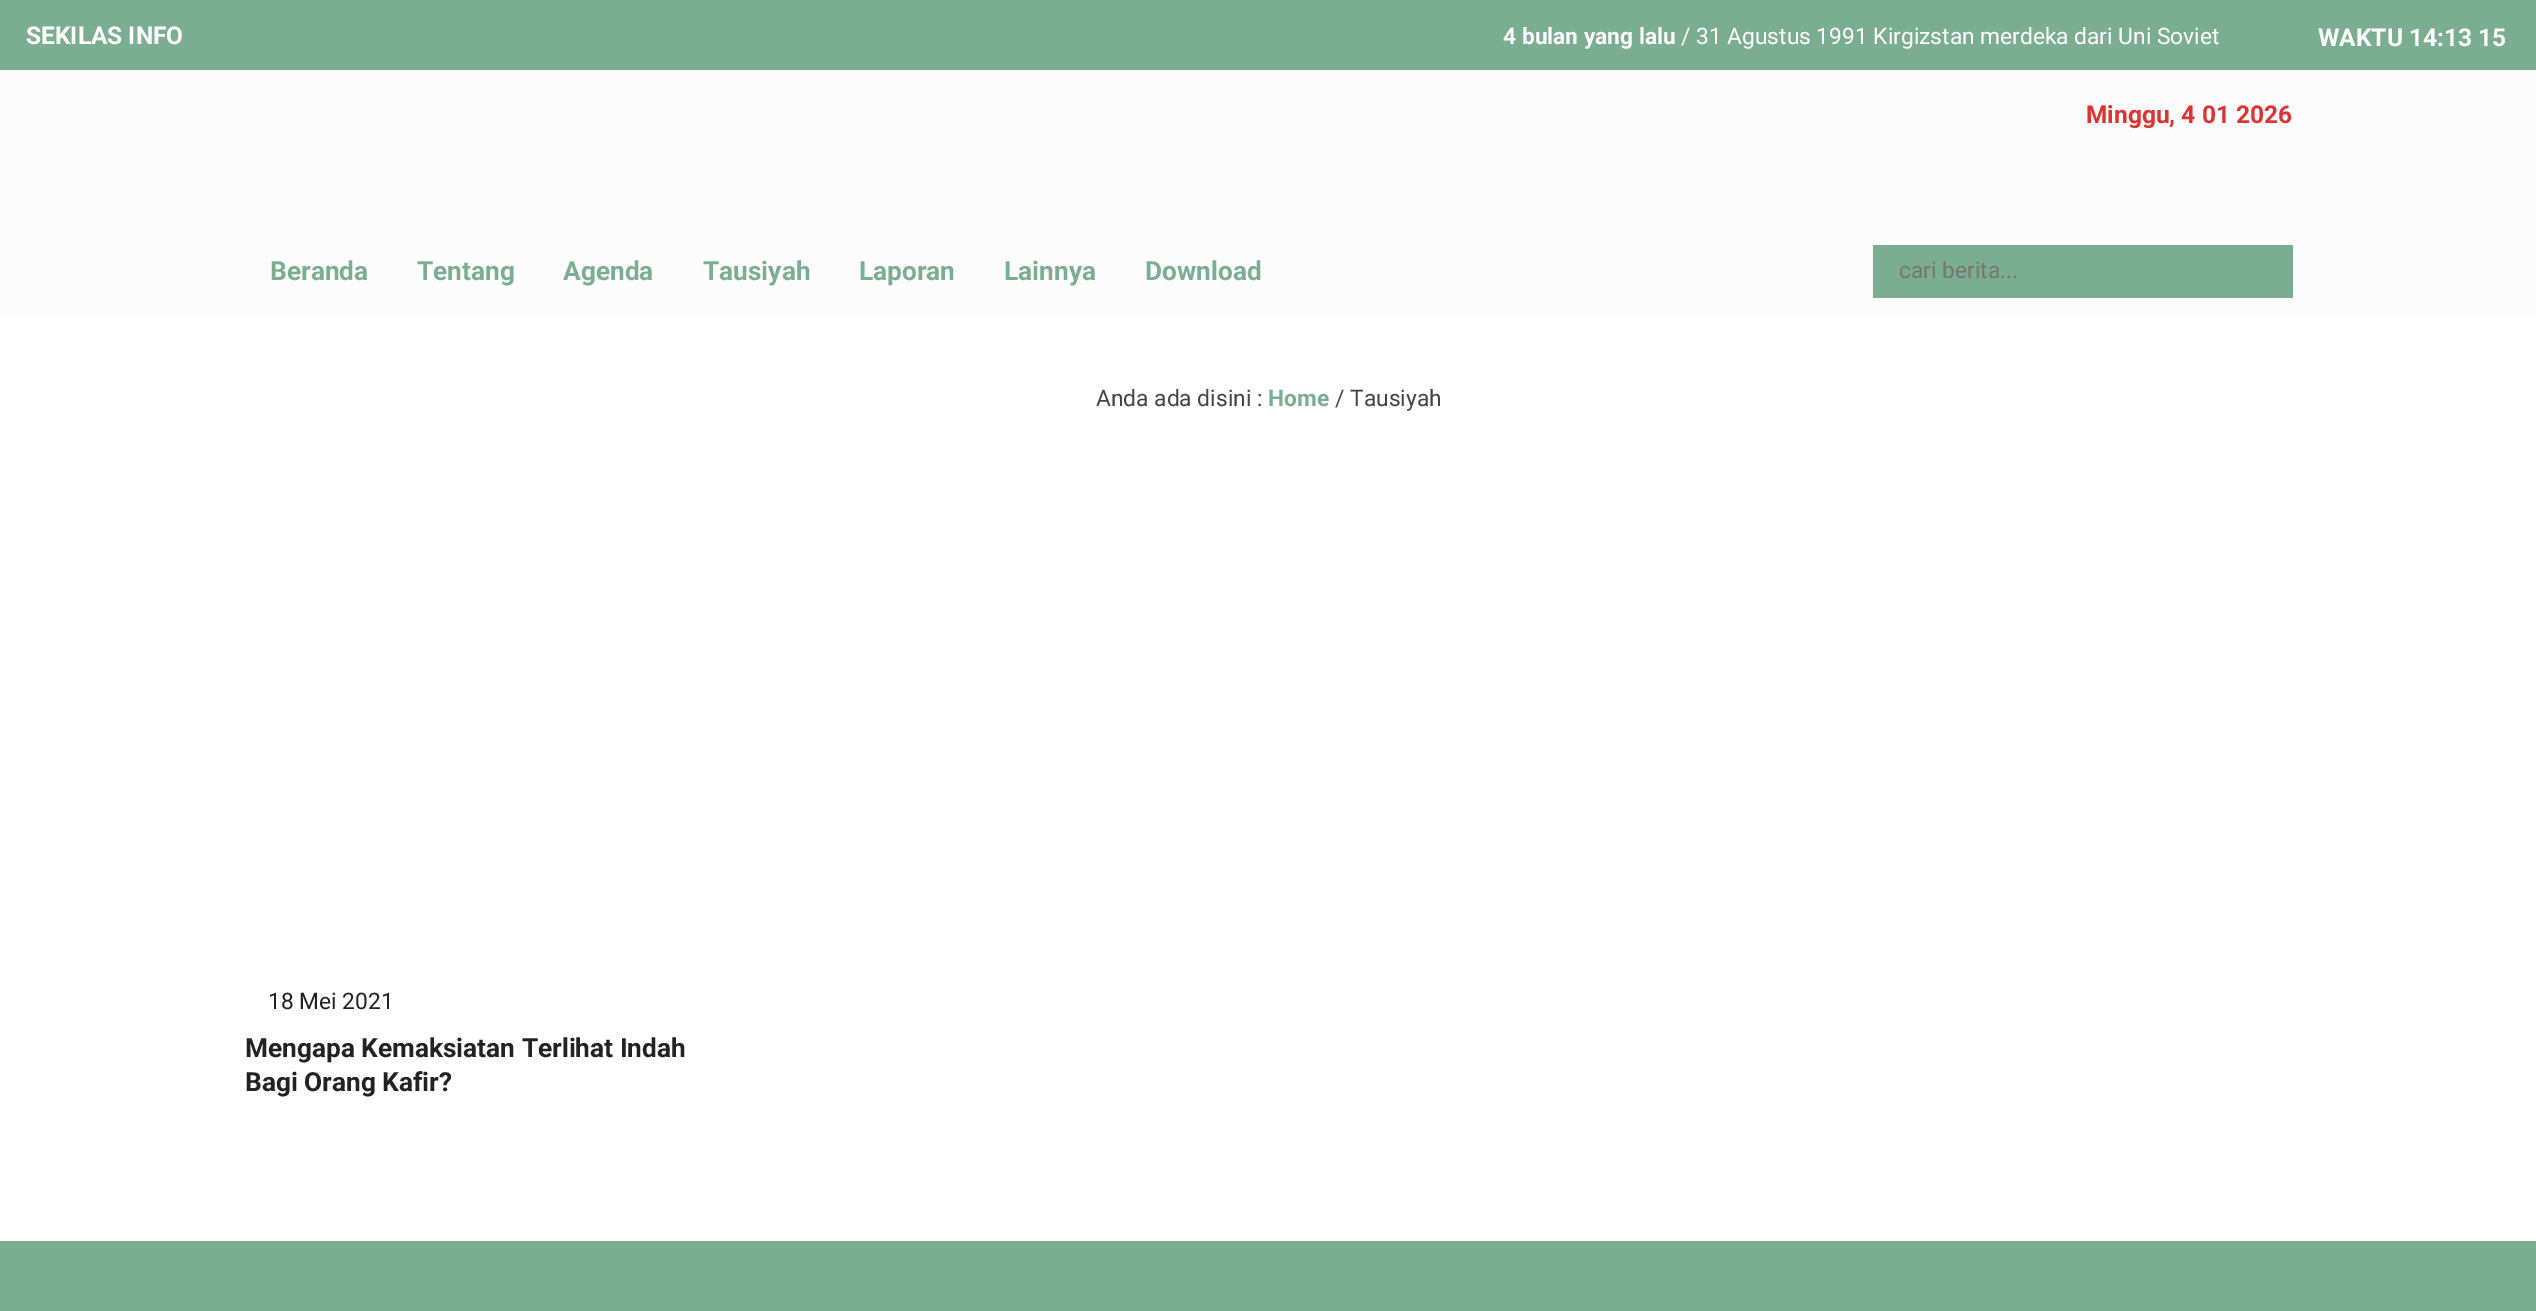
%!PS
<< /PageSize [2536 1311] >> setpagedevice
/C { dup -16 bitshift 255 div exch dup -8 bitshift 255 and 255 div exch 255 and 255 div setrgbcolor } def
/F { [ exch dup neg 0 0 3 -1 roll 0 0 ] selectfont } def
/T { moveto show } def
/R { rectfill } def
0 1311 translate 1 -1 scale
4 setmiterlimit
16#FFFFFF C
0 0 2536 1311 R
16#7BAE91 C
0 0 2536 70 R
/Roboto-Bold 24.5 F
16#FFFFFF C
(SEKILAS INFO) 26 44 T
/Roboto-Bold 22.75 F
(4 bulan yang lalu) 1503 44 T
/Roboto-Regular 22.75 F
(/ 31 Agustus 1991 Kirgizstan merdeka dari Uni Soviet) 1681 44 T
/Roboto-Bold 24.5 F
(WAKTU 14:13 15) 2318 46 T
16#FCFCFC C
0 70 2536 245 R
16#DD3333 C
(Minggu, 4 01 2026) 2086 123 T
/Roboto-Bold 26.25 F
16#7BAE91 C
(Beranda) 270 280 T
(Tentang) 417 280 T
(Agenda) 563 280 T
(Tausiyah) 703 280 T
(Laporan) 859 280 T
(Lainnya) 1004 280 T
(Download) 1145 280 T
1873 245 420 53 R
/Roboto-Regular 22.75 F
16#757575 C
(cari berita...) 1899 278 T
16#444444 C
(Anda ada disini :) 1096 406 T
/Roboto-Bold 22.75 F
16#7BAE91 C
(Home) 1268 406 T
/Roboto-Regular 22.75 F
16#444444 C
(/ Tausiyah) 1335 406 T
16#222222 C
(18 Mei 2021) 268 1009 T
/Roboto-Bold 26.25 F
(Mengapa Kemaksiatan Terlihat Indah) 245 1057 T
(Bagi Orang Kafir?) 245 1091 T
16#7BAE91 C
0 1241 2536 70 R
showpage
